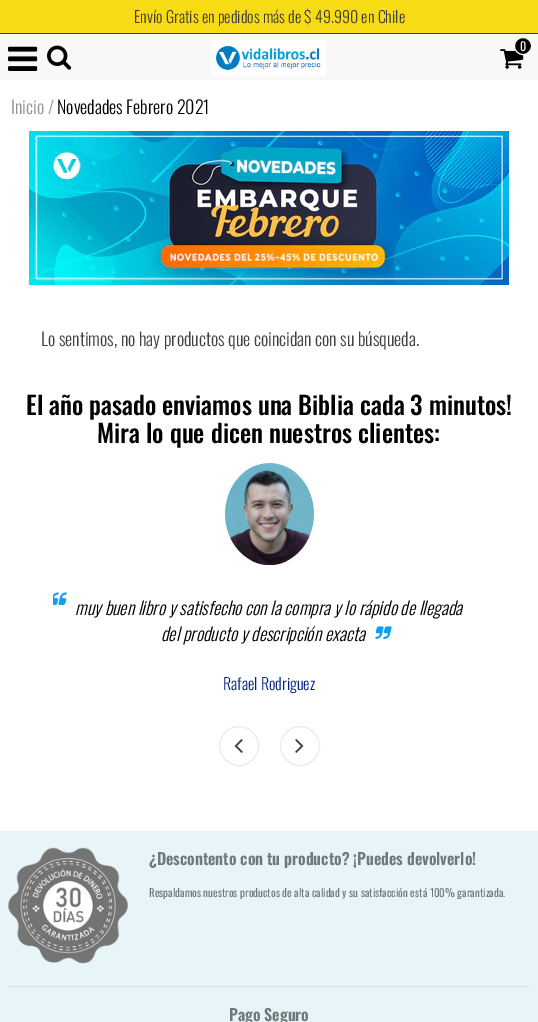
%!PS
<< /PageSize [538 1022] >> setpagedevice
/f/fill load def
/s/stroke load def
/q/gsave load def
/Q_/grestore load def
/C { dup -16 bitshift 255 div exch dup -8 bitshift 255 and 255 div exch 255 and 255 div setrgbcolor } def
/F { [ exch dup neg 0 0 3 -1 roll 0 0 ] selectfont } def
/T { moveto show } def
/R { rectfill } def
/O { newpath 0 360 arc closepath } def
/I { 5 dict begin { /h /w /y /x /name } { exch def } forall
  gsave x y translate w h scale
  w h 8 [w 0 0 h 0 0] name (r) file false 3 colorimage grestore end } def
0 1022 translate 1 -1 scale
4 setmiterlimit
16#FFFFFF C
0 0 538 1022 R
16#F8F8F8 C
0 34 538 46 R
16#F7DB15 C
0 0 538 33 R
16#3B3B3B C
0 33 538 1 R
/Oswald-Light 16 F
(Envío Gratis en pedidos más de $ 49.990 en Chile) 134 23 T
(1.rgb) 8 46 30 25 I
(2.rgb) 47 45 25 25 I
(3.rgb) 211 40 115 36 I
(4.rgb) 500 49 24 20 I
16#000000 C
523 46 8.5 O q f Q_
16#FFFFFF C
s
/Oswald-Regular 12 F
(0) 520 51 T
/Oswald-Light 18 F
16#949494 C
(Inicio) 11 114 T
(/) 48 114 T
16#000000 C
(Novedades Febrero 2021) 57 114 T
(5.rgb) 29 131 480 154 I
16#414141 C
(Lo sentimos, no hay productos que coincidan con su búsqueda.) 41 346 T
/Oswald-Medium 25 F
16#000000 C
(El año pasado enviamos una Biblia cada 3 minutos!) 26 415 T
(Mira lo que dicen nuestros clientes:) 97 443 T
(6.rgb) 225 463 89 102 I
(7.rgb) 53 592 14 13 I
/Oswald-LightItalic 18 F
(muy buen libro y satisfecho con la compra y lo rápido de llegada) 75 615 T
(del producto y descripción exacta) 161 641 T
(8.rgb) 375 626 17 13 I
/Oswald-Light 16 F
16#032084 C
(Rafael Rodriguez) 223 690 T
16#EBEBEB C
239 746 19.5 O s
(9.rgb) 234 739 9 14 I
300 746 19.5 O s
(10.rgb) 295 739 9 14 I
16#E7F5F8 C
0 831 538 191 R
(11.rgb) 8 847 120 117 I
/Oswald-SemiBold 16 F
16#6E797A C
(¿Descontento con tu producto? ¡Puedes devolverlo!) 149 865 T
/Oswald-Regular 11 F
(Respaldamos nuestros productos de alta calidad y su satisfacción está 100% garantizada.) 149 897 T
16#DDDCDC C
8 986 522 1 R
/Oswald-SemiBold 16 F
16#6E797A C
(Pago Seguro) 229 1021 T
showpage
